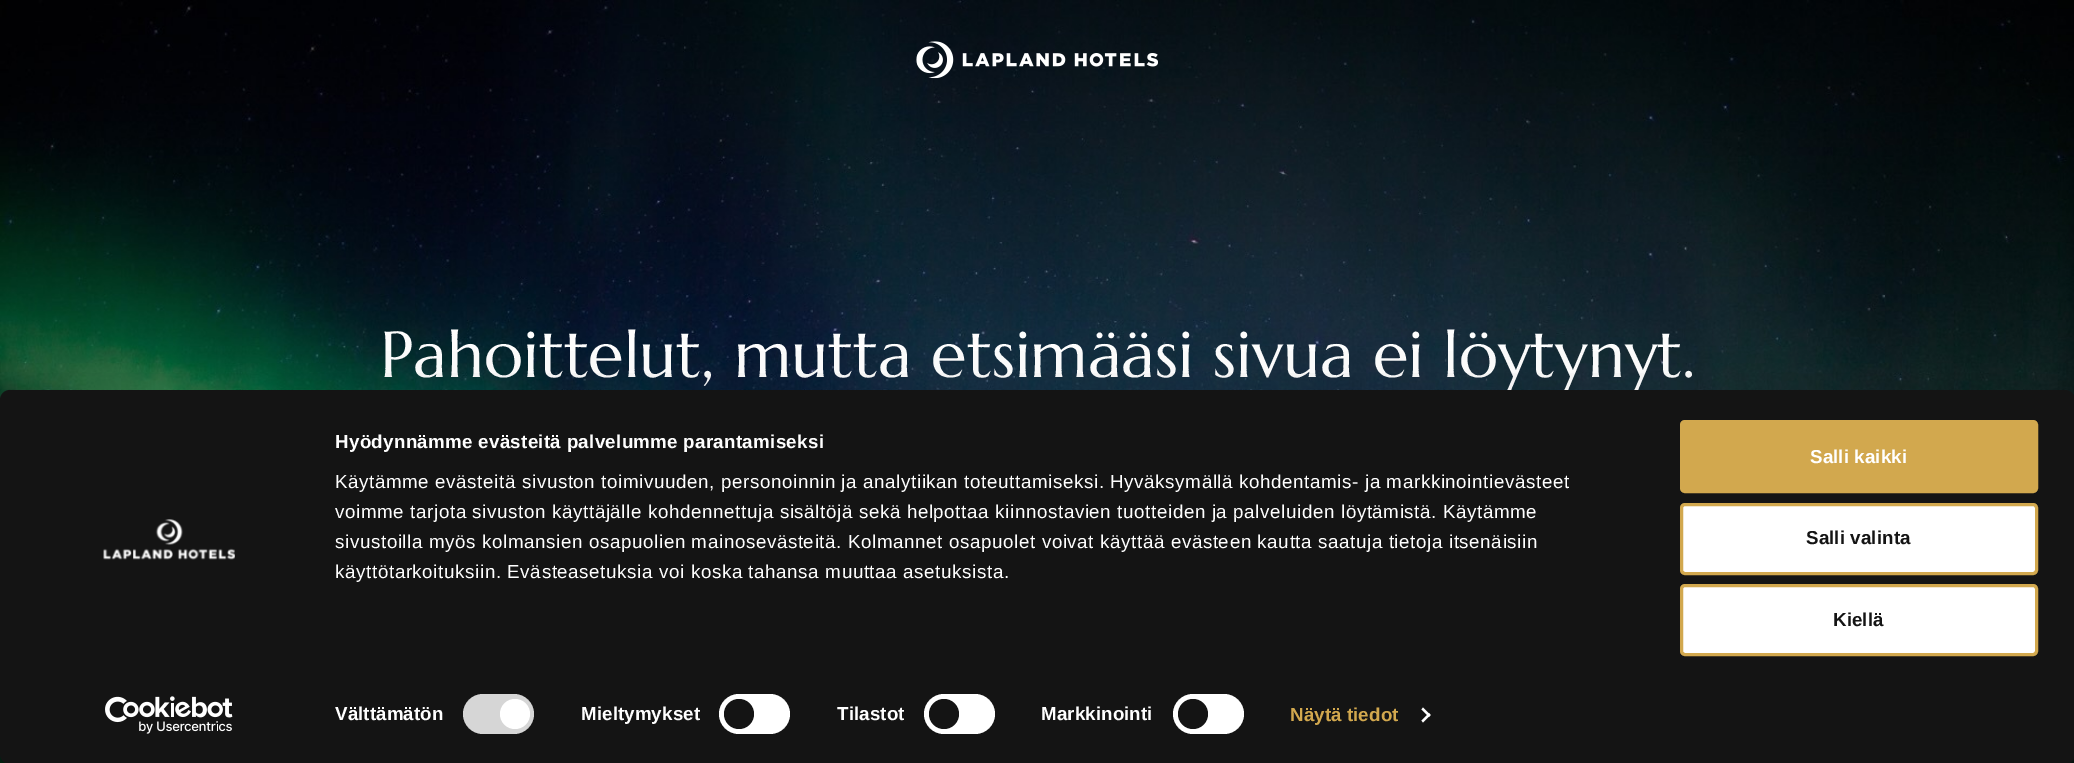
%!PS
<< /PageSize [2074 763] /PageUsesTransparency true >> setpagedevice
/m/moveto load def
/l/rlineto load def
/z/closepath load def
/f/fill load def
/s/stroke load def
/q/gsave load def
/Q_/grestore load def
/w/setlinewidth load def
/C { dup -16 bitshift 255 div exch dup -8 bitshift 255 and 255 div exch 255 and 255 div setrgbcolor } def
/F { [ exch dup neg 0 0 3 -1 roll 0 0 ] selectfont } def
/T { moveto show } def
/R { rectfill } def
/A { dup .setfillconstantalpha .setstrokeconstantalpha } def
/O { newpath 0 360 arc closepath } def
/Q { 5 dict begin { /r /h /w /y /x } { exch def } forall
  x r add y moveto x w add y 2 copy h add r arct x w add y h add x 1 index r arct
  x y h add x y r arct x y 2 copy exch w add exch r arct closepath end } def
/S { 12 dict begin { /a /b /q /h /w /y /x } { exch def } forall gsave /was 0 def
  9 -2 -9 { dup b mul 4 div /e exch def 1 sub .425 mul 2.718 exch exp 1 add a .99 .min exch div /now exch def
    1 1 now sub 1 was sub div sub A /was now def
    w h .min e 2 mul add 0 gt { x e sub y e sub w e 2 mul add h e 2 mul add
      q e add b .6 mul add w h .min 2 div e add .min 0 .max Q fill } if } for grestore end } def
/I { 5 dict begin { /h /w /y /x /name } { exch def } forall
  gsave x y translate w h scale
  w h 8 [w 0 0 h 0 0] name (r) file false 3 colorimage grestore end } def
0 .pushpdf14devicefilter
0 763 translate 1 -1 scale
4 setmiterlimit
16#FFFFFF C
0 0 2074 763 R
(1.rgb) 0 0 2074 763 I
(2.rgb) 916 41 242 38 I
/Marcellus-Regular 65 F
(Pahoittelut, mutta etsimääsi sivua ei löytynyt.) 380 377 T
16#000000 C
0 428 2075 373 10 44 .3 S
16#141414 C
0 390 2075 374 10 Q f
(3.rgb) 103 519 132 41 I
(4.rgb) 105 696 128 38 I
/LiberationSans-Bold 18.75 F
16#FFFFFF C
335 448 m .3 0 (Hyödynnämme evästeitä palvelumme parantamiseksi) ashow
/LiberationSans-Regular 18.75 F
335 488 m .62 0 (Käytämme evästeitä sivuston toimivuuden, personoinnin ja analytiikan toteuttamiseksi. Hyväksymällä kohdentamis- ja markkinointievästeet) ashow
335 518 m .62 0 (voimme tarjota sivuston käyttäjälle kohdennettuja sisältöjä sekä helpottaa kiinnostavien tuotteiden ja palveluiden löytämistä. Käytämme) ashow
335 548 m .62 0 (sivustoilla myös kolmansien osapuolien mainosevästeitä. Kolmannet osapuolet voivat käyttää evästeen kautta saatuja tietoja itsenäisiin) ashow
335 578 m .62 0 (käyttötarkoituksiin. Evästeasetuksia voi koska tahansa muuttaa asetuksista.) ashow
/LiberationSans-Bold 18.75 F
335 720 m .1 0 (Välttämätön) ashow
16#D6D6D6 C
463 694 71 40 20 Q f
16#FFFFFF C
515 714 15 O f
581 720 m .1 0 (Mieltymykset) ashow
719 694 71 40 20 Q f
16#141414 C
739 714 15 O f
16#FFFFFF C
837 720 m .1 0 (Tilastot) ashow
924 694 71 40 20 Q f
16#141414 C
944 714 15 O f
16#FFFFFF C
1041 720 m .1 0 (Markkinointi) ashow
1173 694 71 40 20 Q f
16#141414 C
1193 714 15 O f
16#D2A84E C
1290 721 m .1 0 (Näytä tiedot) ashow
16#FFFFFF C
1423 707.5 m 7.5 7.5 l -1.5 2 l -7.5 -7.5 l z f
1429 713 m 1.5 2 l -7.5 7.5 l -1.5 -2 l z f
16#D2A84E C
1681.5 421.5 355 70 3.5 Q q f Q_
3 w
s
16#FFFFFF C
1810 463 m .1 0 (Salli kaikki) ashow
1681.5 504.5 355 69 3.5 Q q f Q_
16#D2A84E C
s
16#141414 C
1806 544 m .1 0 (Salli valinta) ashow
16#FFFFFF C
1681.5 585.5 355 69 3.5 Q q f Q_
16#D2A84E C
s
16#141414 C
1833 626 m .1 0 (Kiellä) ashow
.poppdf14devicefilter showpage
